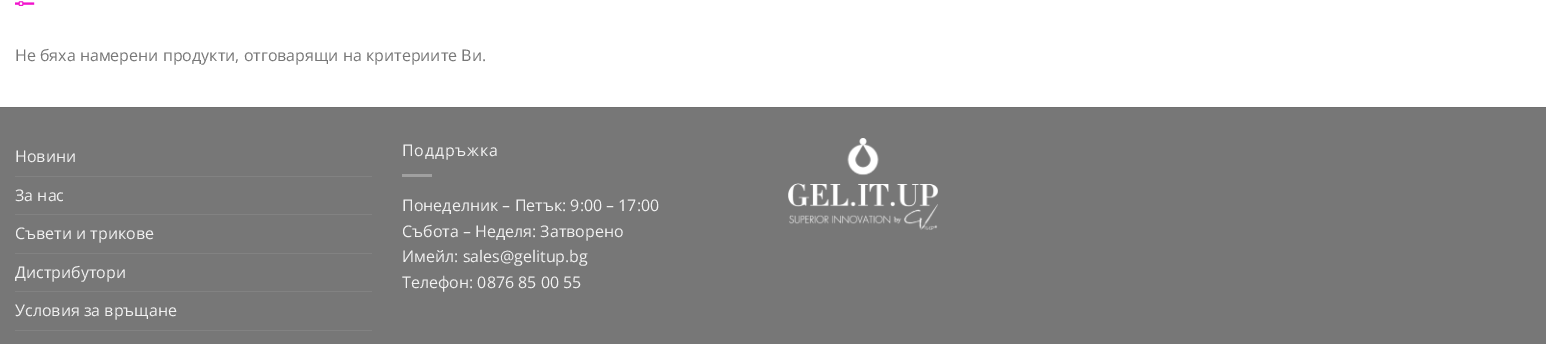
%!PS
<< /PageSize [1546 344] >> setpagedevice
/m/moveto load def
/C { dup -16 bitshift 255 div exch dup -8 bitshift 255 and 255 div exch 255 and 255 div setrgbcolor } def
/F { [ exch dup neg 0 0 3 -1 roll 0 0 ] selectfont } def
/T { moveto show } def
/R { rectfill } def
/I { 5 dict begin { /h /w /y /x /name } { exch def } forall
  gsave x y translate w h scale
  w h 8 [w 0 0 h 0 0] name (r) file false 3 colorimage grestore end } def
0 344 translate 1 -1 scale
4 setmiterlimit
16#FFFFFF C
0 0 1546 344 R
(1.rgb) 15 1 20 5 I
/OpenSans-Regular 16 F
16#777777 C
(Не бяха намерени продукти, отговарящи на критериите Ви.) 15 61 T
0 108 1546 236 R
16#717171 C
0 107 1546 1 R
16#F1F1F1 C
(Новини) 15 162 T
16#828282 C
15 176 357 1 R
16#F1F1F1 C
(За нас) 15 201 T
16#828282 C
15 214 357 1 R
16#F1F1F1 C
(Съвети и трикове) 15 239 T
16#828282 C
15 253 357 1 R
16#F1F1F1 C
(Дистрибутори) 15 278 T
16#828282 C
15 291 357 1 R
16#F1F1F1 C
(Условия за връщане) 15 316 T
16#828282 C
15 330 357 1 R
/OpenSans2-Regular 16 F
16#F1F1F1 C
402 156 m .75 0 (Поддръжка) ashow
16#A0A0A0 C
402 174 30 3 R
/OpenSans-Regular 16 F
16#F1F1F1 C
(Понеделник – Петък: 9:00 – 17:00) 402 211 T
(Събота – Неделя: Затворено) 402 237 T
(Имейл: sales@gelitup.bg) 402 262 T
(Телефон: 0876 85 00 55) 402 288 T
(2.rgb) 788 138 150 92 I
showpage
